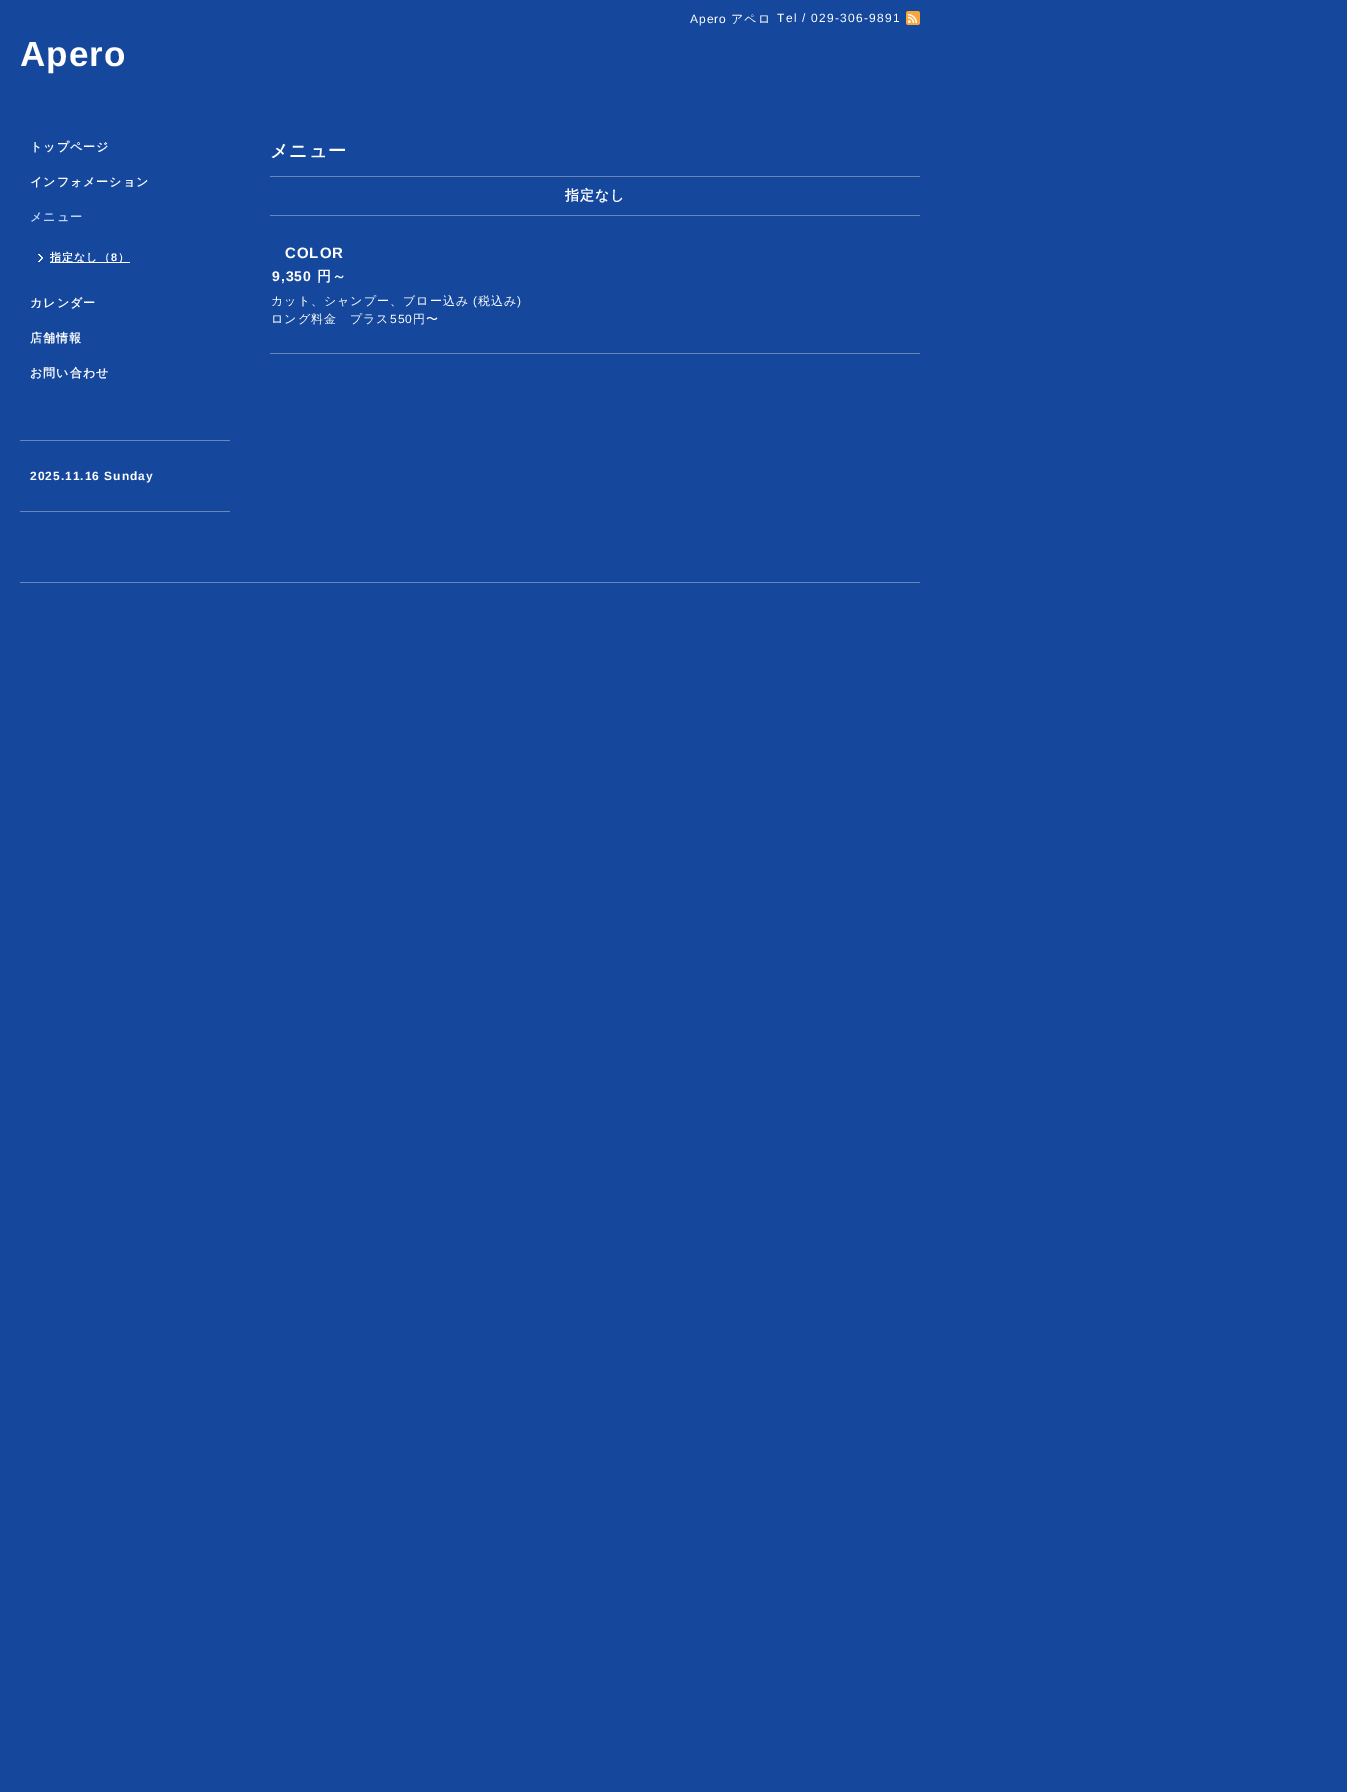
%!PS
<< /PageSize [1347 1792] >> setpagedevice
/m/moveto load def
/C { dup -16 bitshift 255 div exch dup -8 bitshift 255 and 255 div exch 255 and 255 div setrgbcolor } def
/F { [ exch dup neg 0 0 3 -1 roll 0 0 ] selectfont } def
/R { rectfill } def
/I { 5 dict begin { /h /w /y /x /name } { exch def } forall
  gsave x y translate w h scale
  w h 8 [w 0 0 h 0 0] name (r) file false 3 colorimage grestore end } def
0 1792 translate 1 -1 scale
4 setmiterlimit
16#15489D C
0 0 1347 1792 R
/LiberationSans-Regular 12 F
16#FFFFFF C
690 23 m 1 0 (Apero) ashow
/WenQuanYiZenHei-Medium 12 F
731 23 m 1 0 (アペロ) ashow
/LiberationSans-Regular 12 F
777 22 m 1.25 0 (Tel / 029-306-9891) ashow
(1.rgb) 906 11 14 14 I
/LiberationSans-Bold 35 F
20 66 m 1 0 (Apero) ashow
/WenQuanYiZenHei-Bold 12 F
30 151 m 1 0 (トップページ) ashow
30 186 m 1 0 (インフォメーション) ashow
16#BCD3F9 C
30 221 m 1 0 (メニュー) ashow
(2.rgb) 38 254 5 8 I
16#FFFFFF C
50 262 80 1 R
/WenQuanYiZenHei-Bold 11 F
50 261 m 1 0 (指定なし（) ashow
/LiberationSans-Bold 11 F
111 261 m 1 0 (8) ashow
/WenQuanYiZenHei-Bold 11 F
118 261 m 1 0 (）) ashow
/WenQuanYiZenHei-Bold 12 F
30 307 m 1 0 (カレンダー) ashow
30 342 m 1 0 (店舗情報) ashow
30 377 m 1 0 (お問い合わせ) ashow
/WenQuanYiZenHei-Bold 18 F
270 157 m 1 0 (メニュー) ashow
16#6986B8 C
270 353 650 1 R
270 176 650 1 R
270 215 650 1 R
/WenQuanYiZenHei-Bold 14 F
16#FFFFFF C
565 200 m 1 0 (指定なし) ashow
/LiberationSans-Bold 15 F
285 258 m 1 0 (COLOR) ashow
/LiberationSans-Bold 14 F
272 281 m 1 0 (9,350) ashow
/WenQuanYiZenHei-Bold 14 F
317 281 m 1 0 (円～) ashow
/WenQuanYiZenHei-Medium 12 F
271 305 m 1 0 (カット、シャンプー、ブロー込み) ashow
/LiberationSans-Regular 12 F
473 305 m 1 0 (\() ashow
/WenQuanYiZenHei-Medium 12 F
478 305 m 1 0 (税込み) ashow
/LiberationSans-Regular 12 F
517 305 m 1 0 (\)) ashow
/WenQuanYiZenHei-Medium 12 F
271 323 m 1 0 (ロング料金　プラス) ashow
/LiberationSans-Regular 12 F
390 323 m 1 0 (550) ashow
/WenQuanYiZenHei-Medium 12 F
413 323 m 1 0 (円〜) ashow
16#6986B8 C
20 440 210 1 R
20 511 210 1 R
/LiberationSans-Bold 12 F
16#FFFFFF C
30 480 m 1 0 (2025.11.16 Sunday) ashow
16#6986B8 C
20 582 900 1 R
showpage
